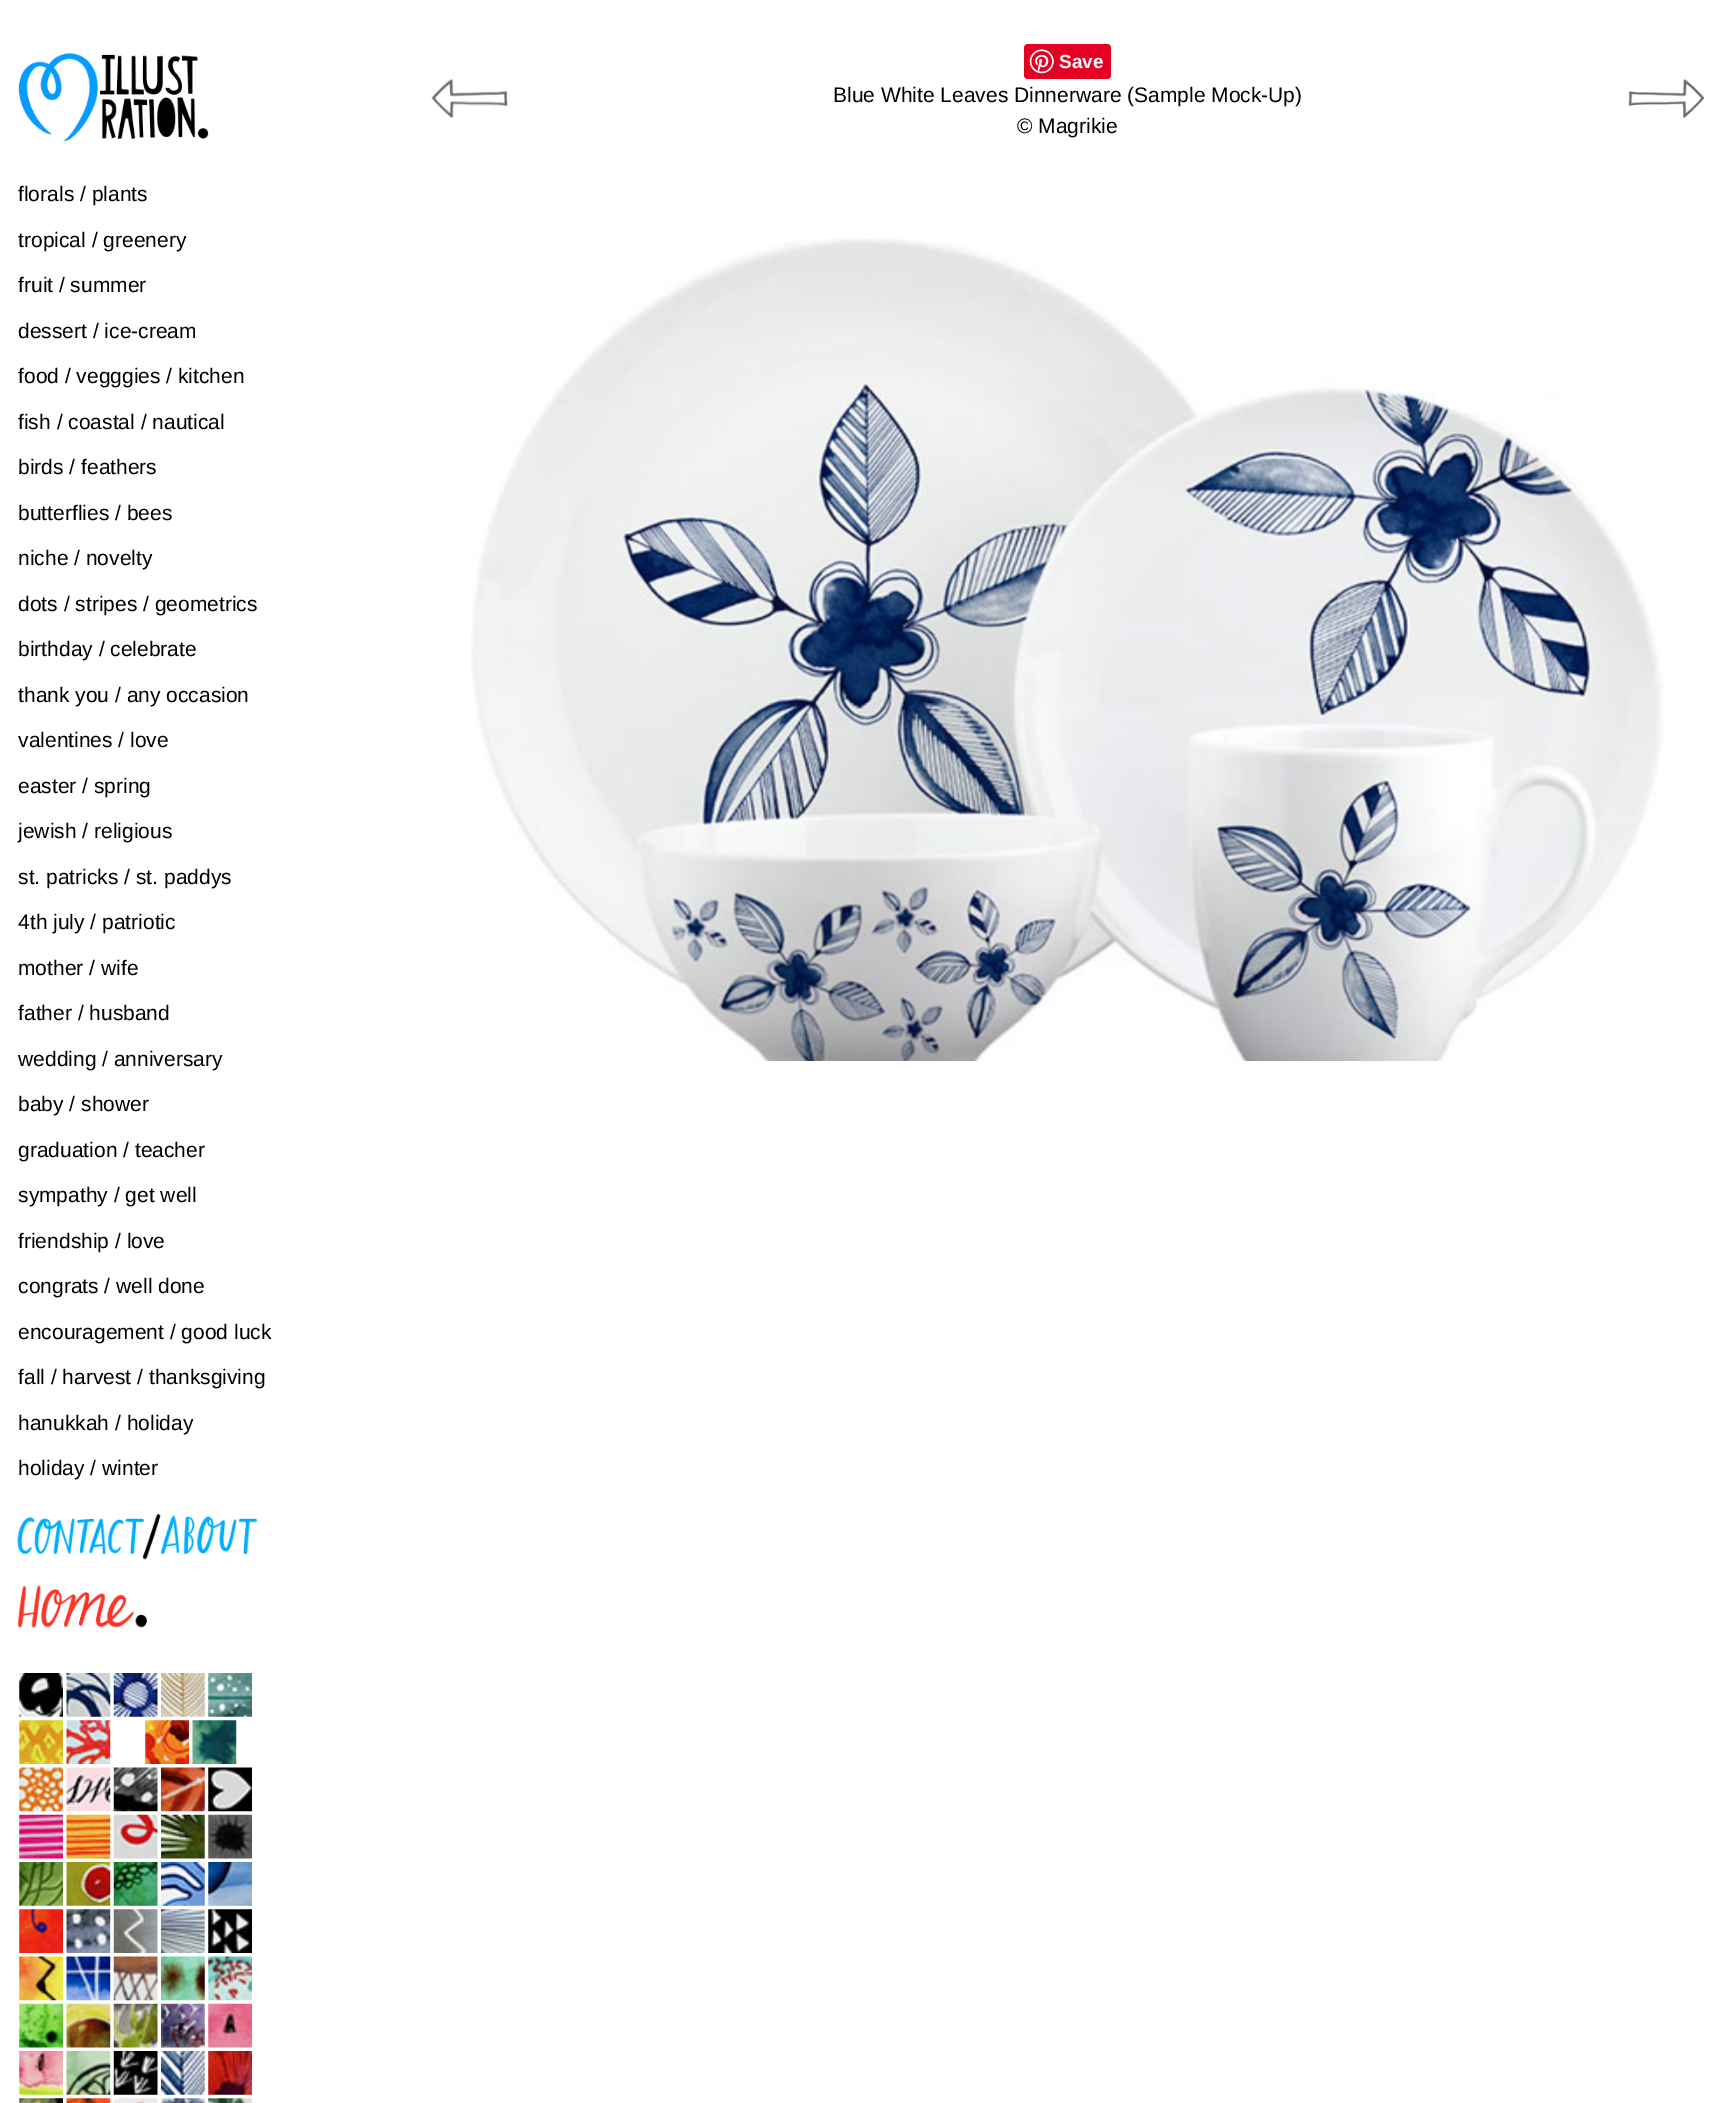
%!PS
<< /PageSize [1722 2103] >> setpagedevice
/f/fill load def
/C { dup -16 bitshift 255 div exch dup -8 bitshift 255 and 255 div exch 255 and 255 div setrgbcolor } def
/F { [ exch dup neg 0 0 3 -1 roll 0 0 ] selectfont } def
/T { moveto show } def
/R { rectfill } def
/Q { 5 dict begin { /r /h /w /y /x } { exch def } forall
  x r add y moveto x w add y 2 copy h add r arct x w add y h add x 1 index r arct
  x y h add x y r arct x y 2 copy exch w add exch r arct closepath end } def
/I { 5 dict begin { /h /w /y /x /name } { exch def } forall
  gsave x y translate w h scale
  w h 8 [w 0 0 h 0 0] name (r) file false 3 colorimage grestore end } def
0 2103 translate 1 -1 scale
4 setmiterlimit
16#FFFFFF C
0 0 1722 2103 R
16#E60023 C
1024 44 87 35 4 Q f
(1.rgb) 1029 49 25 25 I
/LiberationSans-Bold 19 F
16#FFFFFF C
(Save) 1059 68 T
(2.rgb) 431 79 77 39 I
/LiberationSans-Regular 21 F
16#000000 C
(Blue White Leaves Dinnerware \(Sample Mock-Up\)) 833 102 T
(© Magrikie) 1017 133 T
(3.rgb) 1628 78 77 41 I
(4.rgb) 471 238 1193 823 I
(5.rgb) 18 53 191 88 I
(florals / plants) 18 201 T
(tropical / greenery) 18 247 T
(fruit / summer) 18 292 T
(dessert / ice-cream) 18 338 T
(food / vegggies / kitchen) 18 383 T
(fish / coastal / nautical) 18 429 T
(birds / feathers) 18 474 T
(butterflies / bees) 18 520 T
(niche / novelty) 18 565 T
(dots / stripes / geometrics) 18 611 T
(birthday / celebrate) 18 656 T
(thank you / any occasion) 18 702 T
(valentines / love) 18 747 T
(easter / spring) 18 793 T
(jewish / religious) 18 838 T
(st. patricks / st. paddys) 18 884 T
(4th july / patriotic) 18 929 T
(mother / wife) 18 975 T
(father / husband) 18 1020 T
(wedding / anniversary) 18 1066 T
(baby / shower) 18 1111 T
(graduation / teacher) 18 1157 T
(sympathy / get well) 18 1202 T
(friendship / love) 18 1248 T
(congrats / well done) 18 1293 T
(encouragement / good luck) 18 1339 T
(fall / harvest / thanksgiving) 18 1384 T
(hanukkah / holiday) 18 1430 T
(holiday / winter) 18 1475 T
(6.rgb) 17 1513 241 47 I
(7.rgb) 17 1585 130 43 I
(8.rgb) 19 1673 44 44 I
(9.rgb) 66 1673 45 44 I
(10.rgb) 113 1673 45 44 I
(11.rgb) 161 1673 44 44 I
(12.rgb) 208 1673 44 44 I
(13.rgb) 19 1720 44 44 I
(14.rgb) 66 1720 45 44 I
(15.rgb) 145 1720 44 44 I
(16.rgb) 192 1720 45 44 I
(17.rgb) 19 1767 44 45 I
(18.rgb) 66 1767 45 45 I
(19.rgb) 113 1767 45 45 I
(20.rgb) 161 1767 44 45 I
(21.rgb) 208 1767 44 45 I
(22.rgb) 19 1814 44 45 I
(23.rgb) 66 1814 45 45 I
(24.rgb) 113 1814 45 45 I
(25.rgb) 161 1814 44 45 I
(26.rgb) 208 1814 44 45 I
(27.rgb) 19 1862 44 44 I
(28.rgb) 66 1862 45 44 I
(29.rgb) 113 1862 45 44 I
(30.rgb) 161 1862 44 44 I
(31.rgb) 208 1862 44 44 I
(32.rgb) 19 1909 44 44 I
(33.rgb) 66 1909 45 44 I
(34.rgb) 113 1909 45 44 I
(35.rgb) 161 1909 44 44 I
(36.rgb) 208 1909 44 44 I
(37.rgb) 19 1956 44 45 I
(38.rgb) 66 1956 45 45 I
(39.rgb) 113 1956 45 45 I
(40.rgb) 161 1956 44 45 I
(41.rgb) 208 1956 44 45 I
(42.rgb) 19 2003 44 45 I
(43.rgb) 66 2003 45 45 I
(44.rgb) 113 2003 45 45 I
(45.rgb) 161 2003 44 45 I
(46.rgb) 208 2003 44 45 I
(47.rgb) 19 2051 44 44 I
(48.rgb) 66 2051 45 44 I
(49.rgb) 113 2051 45 44 I
(50.rgb) 161 2051 44 44 I
(51.rgb) 208 2051 44 44 I
(52.rgb) 19 2098 44 5 I
(53.rgb) 66 2098 45 5 I
(54.rgb) 113 2098 45 5 I
(55.rgb) 161 2098 44 5 I
(56.rgb) 208 2098 44 5 I
showpage
